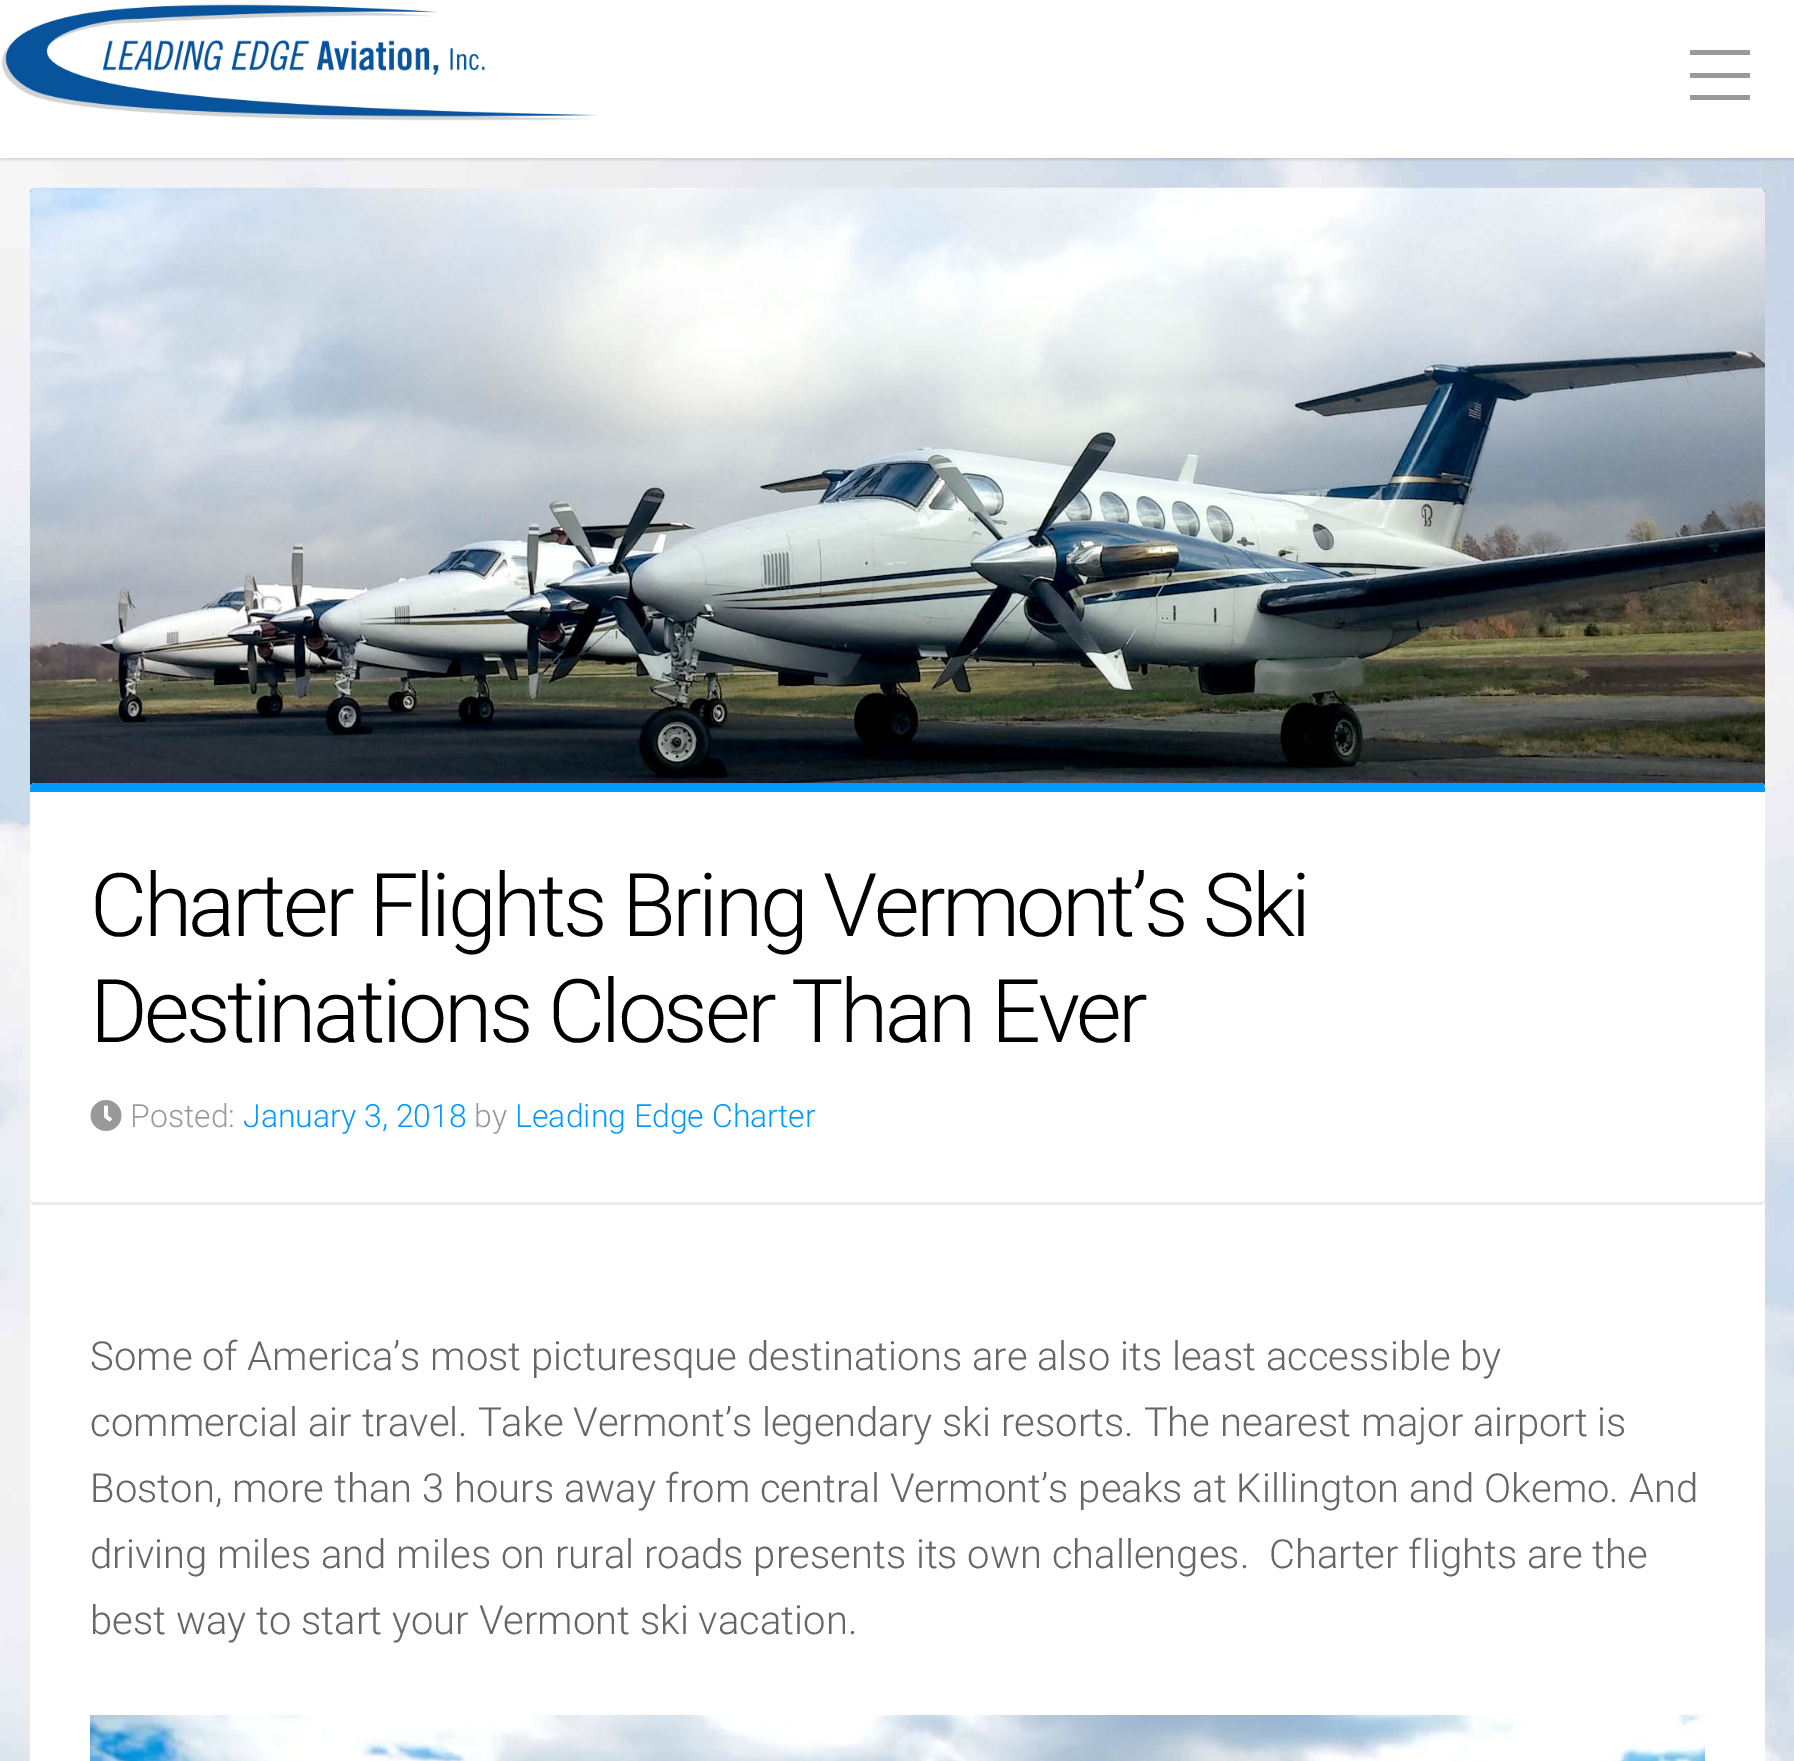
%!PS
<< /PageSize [1794 1761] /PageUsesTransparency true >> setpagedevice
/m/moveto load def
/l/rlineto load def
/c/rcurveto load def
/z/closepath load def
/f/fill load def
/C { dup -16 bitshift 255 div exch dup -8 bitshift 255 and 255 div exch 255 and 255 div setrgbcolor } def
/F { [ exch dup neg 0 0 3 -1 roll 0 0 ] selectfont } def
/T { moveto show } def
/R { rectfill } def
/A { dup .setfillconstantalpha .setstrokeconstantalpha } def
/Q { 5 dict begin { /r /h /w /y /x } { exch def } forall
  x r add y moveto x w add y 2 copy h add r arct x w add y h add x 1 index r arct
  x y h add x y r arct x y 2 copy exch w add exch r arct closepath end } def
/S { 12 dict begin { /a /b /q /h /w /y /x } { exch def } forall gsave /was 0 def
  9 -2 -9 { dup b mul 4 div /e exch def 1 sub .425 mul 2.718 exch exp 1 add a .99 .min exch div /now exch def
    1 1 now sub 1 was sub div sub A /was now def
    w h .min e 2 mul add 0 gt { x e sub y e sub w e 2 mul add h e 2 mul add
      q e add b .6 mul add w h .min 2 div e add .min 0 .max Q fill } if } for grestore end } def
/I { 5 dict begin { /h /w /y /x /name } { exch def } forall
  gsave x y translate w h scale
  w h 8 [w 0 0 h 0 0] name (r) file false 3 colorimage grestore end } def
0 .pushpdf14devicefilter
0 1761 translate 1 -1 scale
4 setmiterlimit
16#FFFFFF C
0 0 1794 1761 R
(1.rgb) 0 158 1794 1603 I
16#000000 C
0 3 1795 157 0 1 .12 S
16#FFFFFF C
0 2 1794 156 R
(2.rgb) 1 4 596 117 I
16#999999 C
1690 50 60 5 R
1690 73 60 5 R
1690 95 60 5 R
16#000000 C
30 188 1735 600 5 Q f
(3.rgb) 30 187 1735 599 I
16#FFFFFF C
30 783 1735 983 5 Q f
30 783 1735 422 5 Q f
16#0099FF C
35 783 m -5 0 -5 5 -5 9 c 1735 0 l 0 -4 0 -9 -5 -9 c z f
16#EBEBEB C
1765 1200 m 0 1 -2 2 -5 2 c -1725 0 l -3 0 -5 -1 -5 -2 c 0 3 2 5 5 5 c 1725 0 l 3 0 5 -2 5 -5 c z f
/Roboto-Light 88 F
16#000000 C
90 936 m -3.5 0 (Charter Flights Bring Vermont’s Ski) ashow
90 1042 m -3.5 0 (Destinations Closer Than Ever) ashow
(4.rgb) 90 1100 32 31 I
/Roboto-Light 32 F
16#999999 C
(Posted:) 130 1127 T
16#0099FF C
(January 3, 2018) 243 1127 T
16#999999 C
(by) 474 1127 T
16#0099FF C
(Leading Edge Charter) 515 1127 T
/Roboto-Light 40 F
16#666666 C
(Some of America’s most picturesque destinations are also its least accessible by) 90 1370 T
(commercial air travel. Take Vermont’s legendary ski resorts. The nearest major airport is) 90 1436 T
(Boston, more than 3 hours away from central Vermont’s peaks at Killington and Okemo. And) 90 1502 T
(driving miles and miles on rural roads presents its own challenges.  Charter flights are the) 90 1568 T
(best way to start your Vermont ski vacation.) 90 1634 T
(5.rgb) 90 1715 1615 46 I
.poppdf14devicefilter showpage
